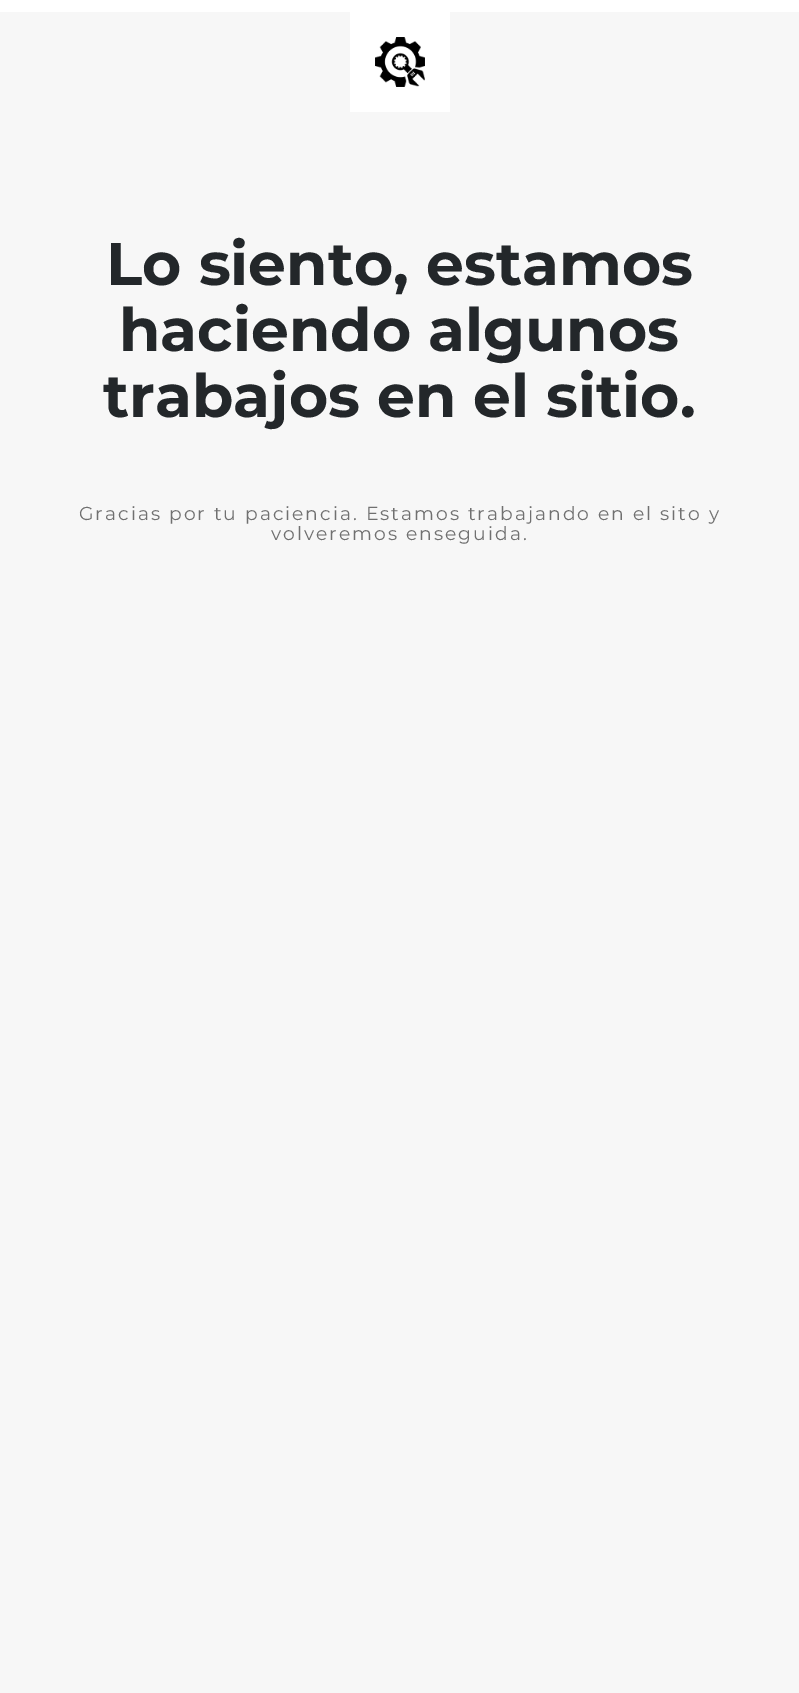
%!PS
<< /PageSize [799 1693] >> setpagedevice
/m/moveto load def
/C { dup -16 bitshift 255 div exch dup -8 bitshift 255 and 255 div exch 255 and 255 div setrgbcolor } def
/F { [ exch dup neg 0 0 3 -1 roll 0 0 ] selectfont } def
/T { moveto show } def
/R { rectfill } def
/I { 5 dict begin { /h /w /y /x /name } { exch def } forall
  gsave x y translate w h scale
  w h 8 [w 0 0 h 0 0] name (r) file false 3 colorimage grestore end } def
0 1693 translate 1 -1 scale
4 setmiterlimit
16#F7F7F7 C
0 0 799 1693 R
16#FFFFFF C
0 0 799 12 R
350 12 100 100 R
(1.rgb) 375 37 50 50 I
/Montserrat-Thin 60 F
16#23272A C
(Lo siento, estamos) 106 285 T
(haciendo algunos) 119 351 T
(trabajos en el sitio.) 103 417 T
/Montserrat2-Thin 18.75 F
16#707070 C
79 520 m 2 0 (Gracias por tu paciencia. Estamos trabajando en el sito y) ashow
271 540 m 2 0 (volveremos enseguida.) ashow
showpage
